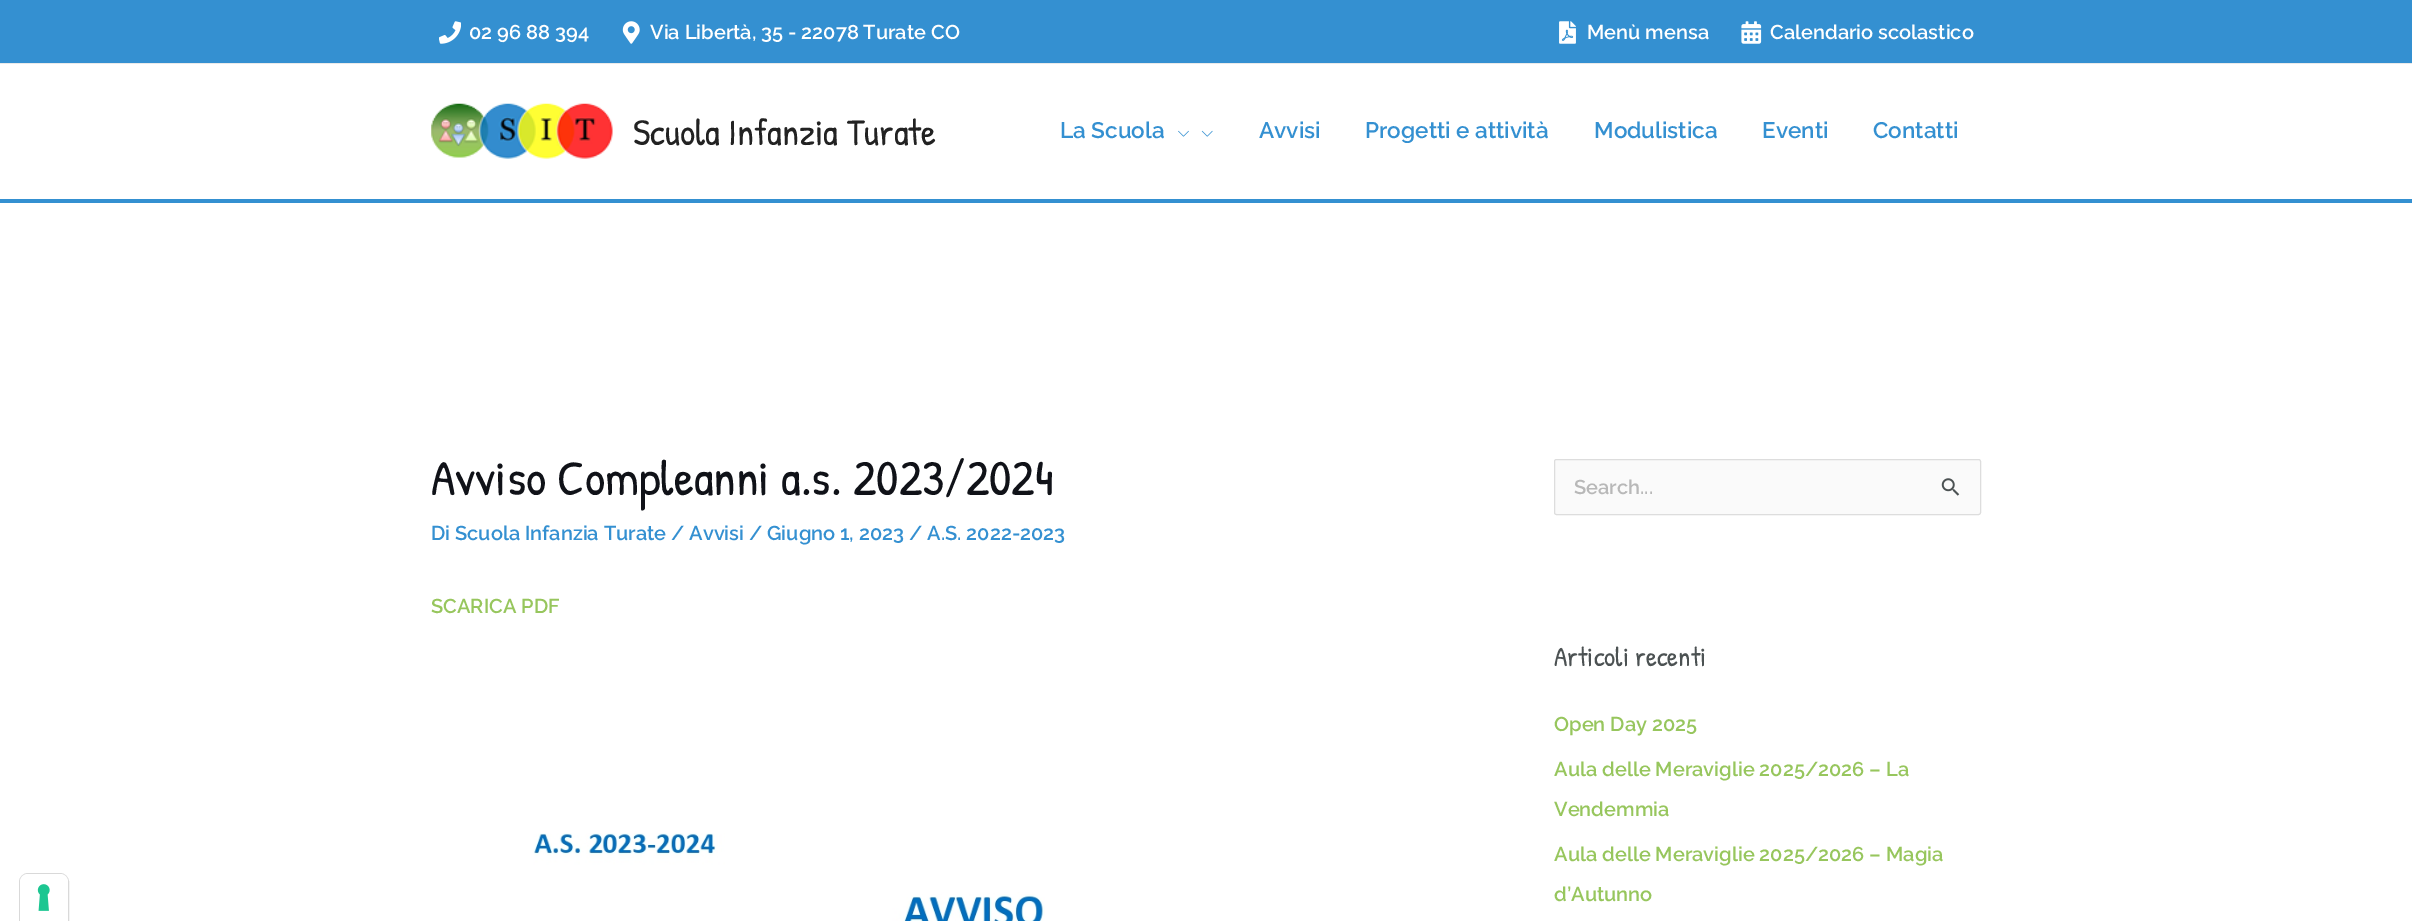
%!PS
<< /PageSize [2412 921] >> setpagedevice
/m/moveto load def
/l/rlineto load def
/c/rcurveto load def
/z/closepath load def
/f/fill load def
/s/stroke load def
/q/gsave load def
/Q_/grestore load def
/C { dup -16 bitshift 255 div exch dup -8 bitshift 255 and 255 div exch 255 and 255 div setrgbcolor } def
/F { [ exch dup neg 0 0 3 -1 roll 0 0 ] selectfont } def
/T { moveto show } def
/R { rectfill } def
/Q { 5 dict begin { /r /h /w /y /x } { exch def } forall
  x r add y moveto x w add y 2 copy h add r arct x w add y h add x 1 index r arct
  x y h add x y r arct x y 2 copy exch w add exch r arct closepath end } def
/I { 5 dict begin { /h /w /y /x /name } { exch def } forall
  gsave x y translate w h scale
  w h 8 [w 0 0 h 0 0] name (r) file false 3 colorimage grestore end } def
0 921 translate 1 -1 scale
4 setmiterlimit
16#FFFFFF C
0 0 2412 921 R
16#D9D9D9 C
28 873.5 m 32 0 l 4.5 0 8.5 4 8.5 8.5 c 0 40.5 l -49 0 l 0 -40.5 l 0 -4.5 4 -8.5 8.5 -8.5 c z s
16#FFFFFF C
28 874 m 32 0 l 4.5 0 8 3.5 8 8 c 0 39 l -48 0 l 0 -39 l 0 -4.5 3.5 -8 8 -8 c z f
(1.rgb) 37 884 13 27 I
16#3490D1 C
0 0 2412 63 R
16#EAEAEA C
0 63 2412 1 R
(2.rgb) 439 21 22 23 I
/Raleway-SemiBold 20 F
16#FFFFFF C
(02 96 88 394) 469 39 T
(3.rgb) 622 21 18 23 I
(Via Libertà, 35 - 22078 Turate CO) 650 39 T
(4.rgb) 1559 21 17 23 I
(Menù mensa) 1587 39 T
(5.rgb) 1741 21 21 23 I
(Calendario scolastico) 1770 39 T
16#3490D1 C
0 199 2412 4 R
(6.rgb) 431 103 182 56 I
/PatrickHand-Regular 37.5 F
16#222222 C
(Scuola Infanzia Turate) 633 145 T
/Raleway-SemiBold 22.5 F
16#3490D1 C
(La Scuola) 1060 138 T
(7.rgb) 1178 130 11 7 I
(8.rgb) 1201 130 12 7 I
(Avvisi) 1259 138 T
(Progetti e attività) 1365 138 T
(Modulistica) 1594 138 T
(Eventi) 1762 138 T
(Contatti) 1873 138 T
/PatrickHand-Regular 50 F
16#101218 C
(Avviso Compleanni a.s. 2023/2024) 431 495 T
/Raleway-SemiBold 20 F
16#3490D1 C
(Di Scuola Infanzia Turate / Avvisi / Giugno 1, 2023 / A.S. 2022-2023) 431 540 T
16#97C65D C
(SCARICA PDF) 431 613 T
(9.rgb) 533 833 512 88 I
16#FAFAFA C
1554.5 459.5 426 55 2 Q q f Q_
16#DDDDDD C
s
16#B8B8B8 C
(Search...) 1574 494 T
(10.rgb) 1941 478 19 18 I
/PatrickHand-Regular 27.5 F
16#4C5253 C
(Articoli recenti) 1554 666 T
/Raleway-SemiBold 20 F
16#97C65D C
(Open Day 2025) 1554 731 T
(Aula delle Meraviglie 2025/2026 – La) 1554 776 T
(Vendemmia) 1554 816 T
(Aula delle Meraviglie 2025/2026 – Magia) 1554 861 T
(d’Autunno) 1554 901 T
showpage
